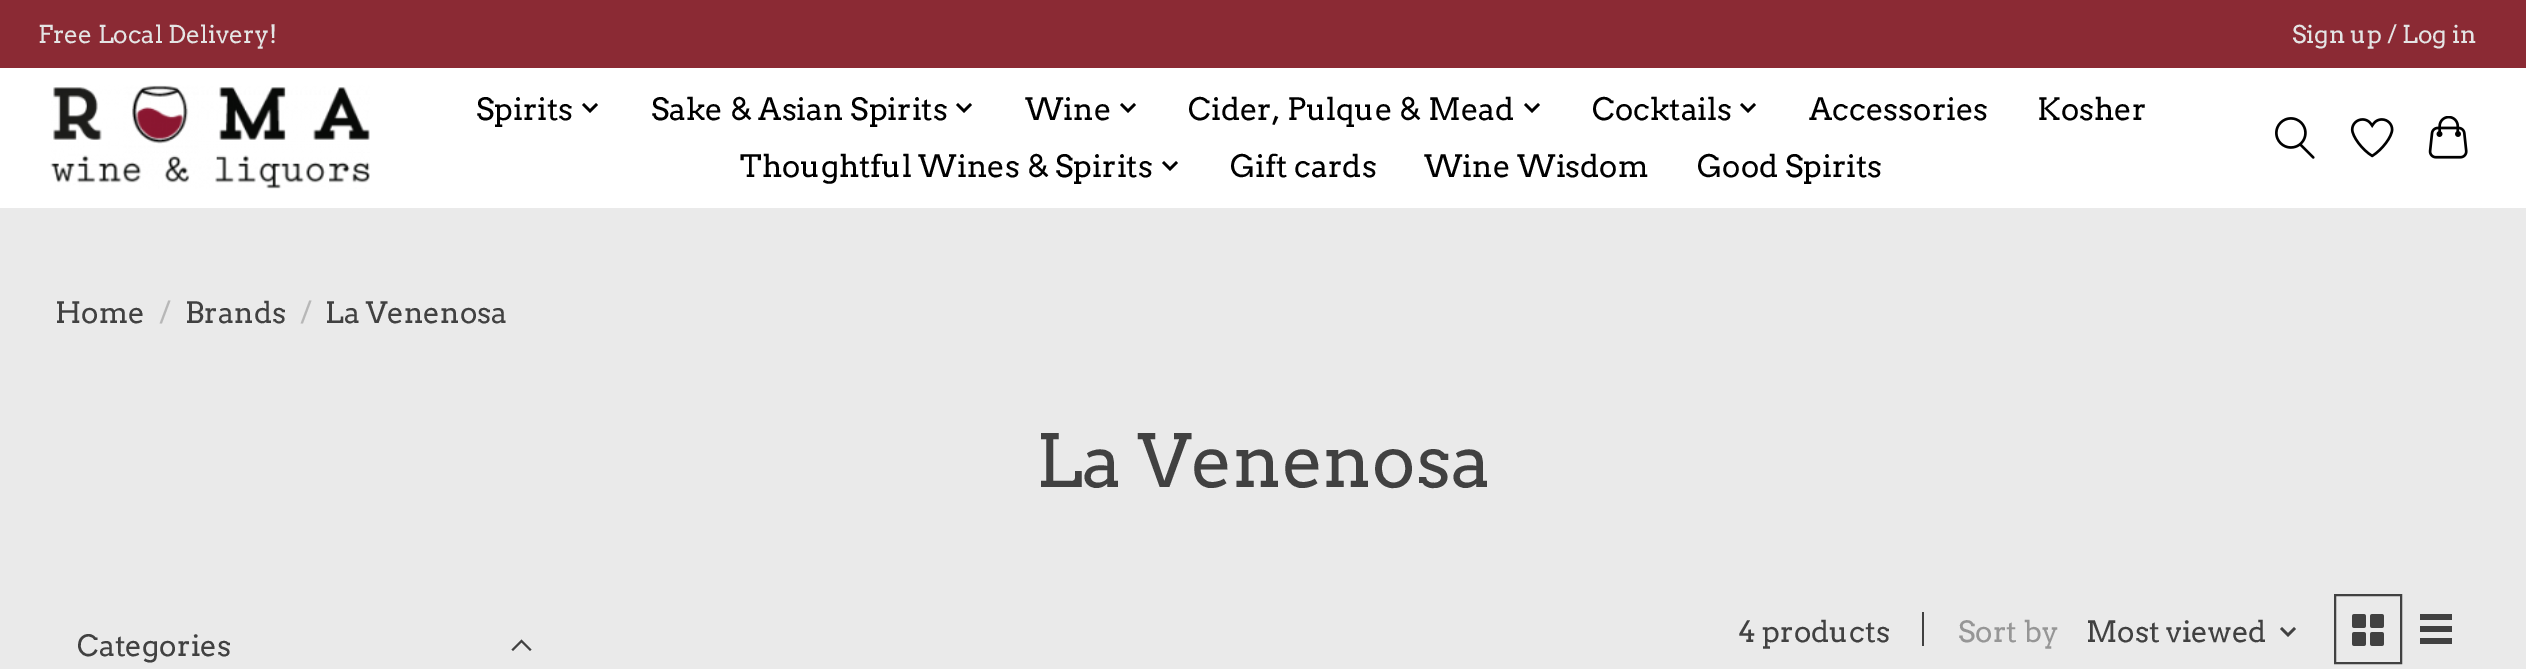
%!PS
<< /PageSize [2526 669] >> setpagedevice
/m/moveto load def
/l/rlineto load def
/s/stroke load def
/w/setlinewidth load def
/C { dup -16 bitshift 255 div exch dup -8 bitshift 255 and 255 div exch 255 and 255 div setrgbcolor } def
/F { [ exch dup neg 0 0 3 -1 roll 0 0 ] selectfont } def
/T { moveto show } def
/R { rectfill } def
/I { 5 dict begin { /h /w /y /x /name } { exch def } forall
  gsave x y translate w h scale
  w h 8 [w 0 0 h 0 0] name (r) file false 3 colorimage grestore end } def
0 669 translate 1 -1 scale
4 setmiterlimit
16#EAEAEA C
0 0 2526 669 R
16#FFFFFF C
0 68 2526 140 R
16#8B2A34 C
0 0 2526 68 R
/Arvo-Regular 24.5 F
16#E4E4E4 C
(Free Local Delivery!) 38 43 T
(Sign up / Log in) 2292 43 T
(1.rgb) 50 85 320 104 I
/Arvo-Regular 30.75 F
16#000000 C
(Spirits) 476 120 T
(2.rgb) 582 103 16 10 I
(Sake & Asian Spirits) 651 120 T
(2.rgb) 956 103 16 10 I
(Wine) 1025 120 T
(2.rgb) 1120 103 16 10 I
(Cider, Pulque & Mead) 1188 120 T
(2.rgb) 1524 103 16 10 I
(Cocktails) 1592 120 T
(2.rgb) 1740 103 16 10 I
(Accessories) 1809 120 T
(Kosher) 2037 120 T
(Thoughtful Wines & Spirits) 740 177 T
(2.rgb) 1162 161 16 10 I
(Gift cards) 1230 177 T
(Wine Wisdom) 1424 177 T
(Good Spirits) 1697 177 T
(3.rgb) 2275 117 40 42 I
(4.rgb) 2350 118 44 40 I
(5.rgb) 2428 116 40 43 I
/Arvo-Regular 29.25 F
16#414141 C
(Home) 55 323 T
16#B7B7B7 C
(/) 159 323 T
16#414141 C
(Brands) 185 323 T
16#B7B7B7 C
(/) 300 323 T
16#414141 C
(La Venenosa) 325 323 T
/Arvo-Regular 73 F
(La Venenosa) 1036 487 T
/Arvo-Regular 29.25 F
(Categories) 77 656 T
2.1 w
2 setlinecap
513 649.5 m 8.5 -8.5 l 530 649.5 m -8.5 -8.5 l s
(4 products) 1738 642 T
1922 612 2 34 R
16#969696 C
(Sort by) 1958 642 T
16#414141 C
(Most viewed) 2086 642 T
(6.rgb) 2280 627 16 10 I
2 w
0 setlinecap
2335 595 66 68 rectstroke
(7.rgb) 2352 614 32 32 I
2420 614 32 6 R
2420 626 32 6 R
2420 638 32 6 R
showpage
